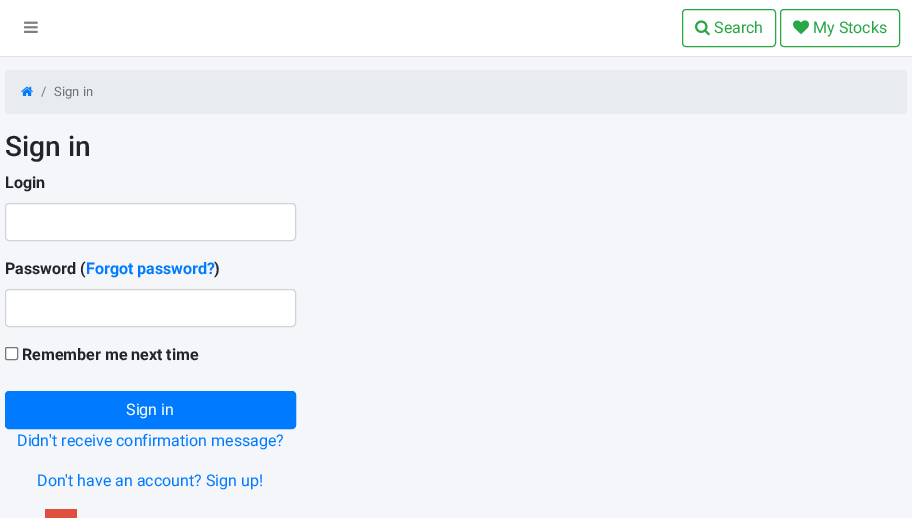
%!PS
<< /PageSize [912 518] >> setpagedevice
/f/fill load def
/s/stroke load def
/q/gsave load def
/Q_/grestore load def
/C { dup -16 bitshift 255 div exch dup -8 bitshift 255 and 255 div exch 255 and 255 div setrgbcolor } def
/F { [ exch dup neg 0 0 3 -1 roll 0 0 ] selectfont } def
/T { moveto show } def
/R { rectfill } def
/Q { 5 dict begin { /r /h /w /y /x } { exch def } forall
  x r add y moveto x w add y 2 copy h add r arct x w add y h add x 1 index r arct
  x y h add x y r arct x y 2 copy exch w add exch r arct closepath end } def
/I { 5 dict begin { /h /w /y /x /name } { exch def } forall
  gsave x y translate w h scale
  w h 8 [w 0 0 h 0 0] name (r) file false 3 colorimage grestore end } def
0 518 translate 1 -1 scale
4 setmiterlimit
16#FFFFFF C
0 0 912 518 R
16#DEE2E6 C
0 56 912 1 R
(1.rgb) 24 21 14 12 I
16#28A745 C
682.5 9.5 93 37 3.5 Q s
(2.rgb) 695 20 15 16 I
/Roboto-Regular 16 F
(Search) 714 33 T
780.5 9.5 119 37 3.5 Q s
(3.rgb) 793 20 16 15 I
(My Stocks) 813 33 T
16#F4F6F9 C
0 57 912 461 R
16#E9ECEF C
5 70 902 44 4 Q f
(4.rgb) 21 86 12 10 I
/Roboto-Regular 13 F
16#6C757D C
(/) 41 96 T
(Sign in) 54 96 T
/Roboto-Medium 28 F
16#212529 C
(Sign in) 5 156 T
/Roboto-Bold 16 F
(Login) 5 188 T
16#FFFFFF C
5.5 203.5 290 37 3.5 Q q f Q_
16#CED4DA C
s
16#212529 C
(Password \() 5 274 T
16#007BFF C
(Forgot password?) 86 274 T
16#212529 C
(\)) 214 274 T
16#FFFFFF C
5.5 289.5 290 37 3.5 Q q f Q_
16#CED4DA C
s
16#FFFFFF C
5.5 347.5 12 12 1.5 Q q f Q_
16#767676 C
s
16#212529 C
(Remember me next time) 22 360 T
16#007BFF C
5.5 391.5 290 37 3.5 Q q f Q_
s
/Roboto-Regular 16 F
16#FFFFFF C
(Sign in) 126 415 T
16#007BFF C
(Didn't receive confirmation message?) 17 446 T
(Don't have an account? Sign up!) 37 486 T
16#DF4F3F C
45 509 32 9 R
showpage
